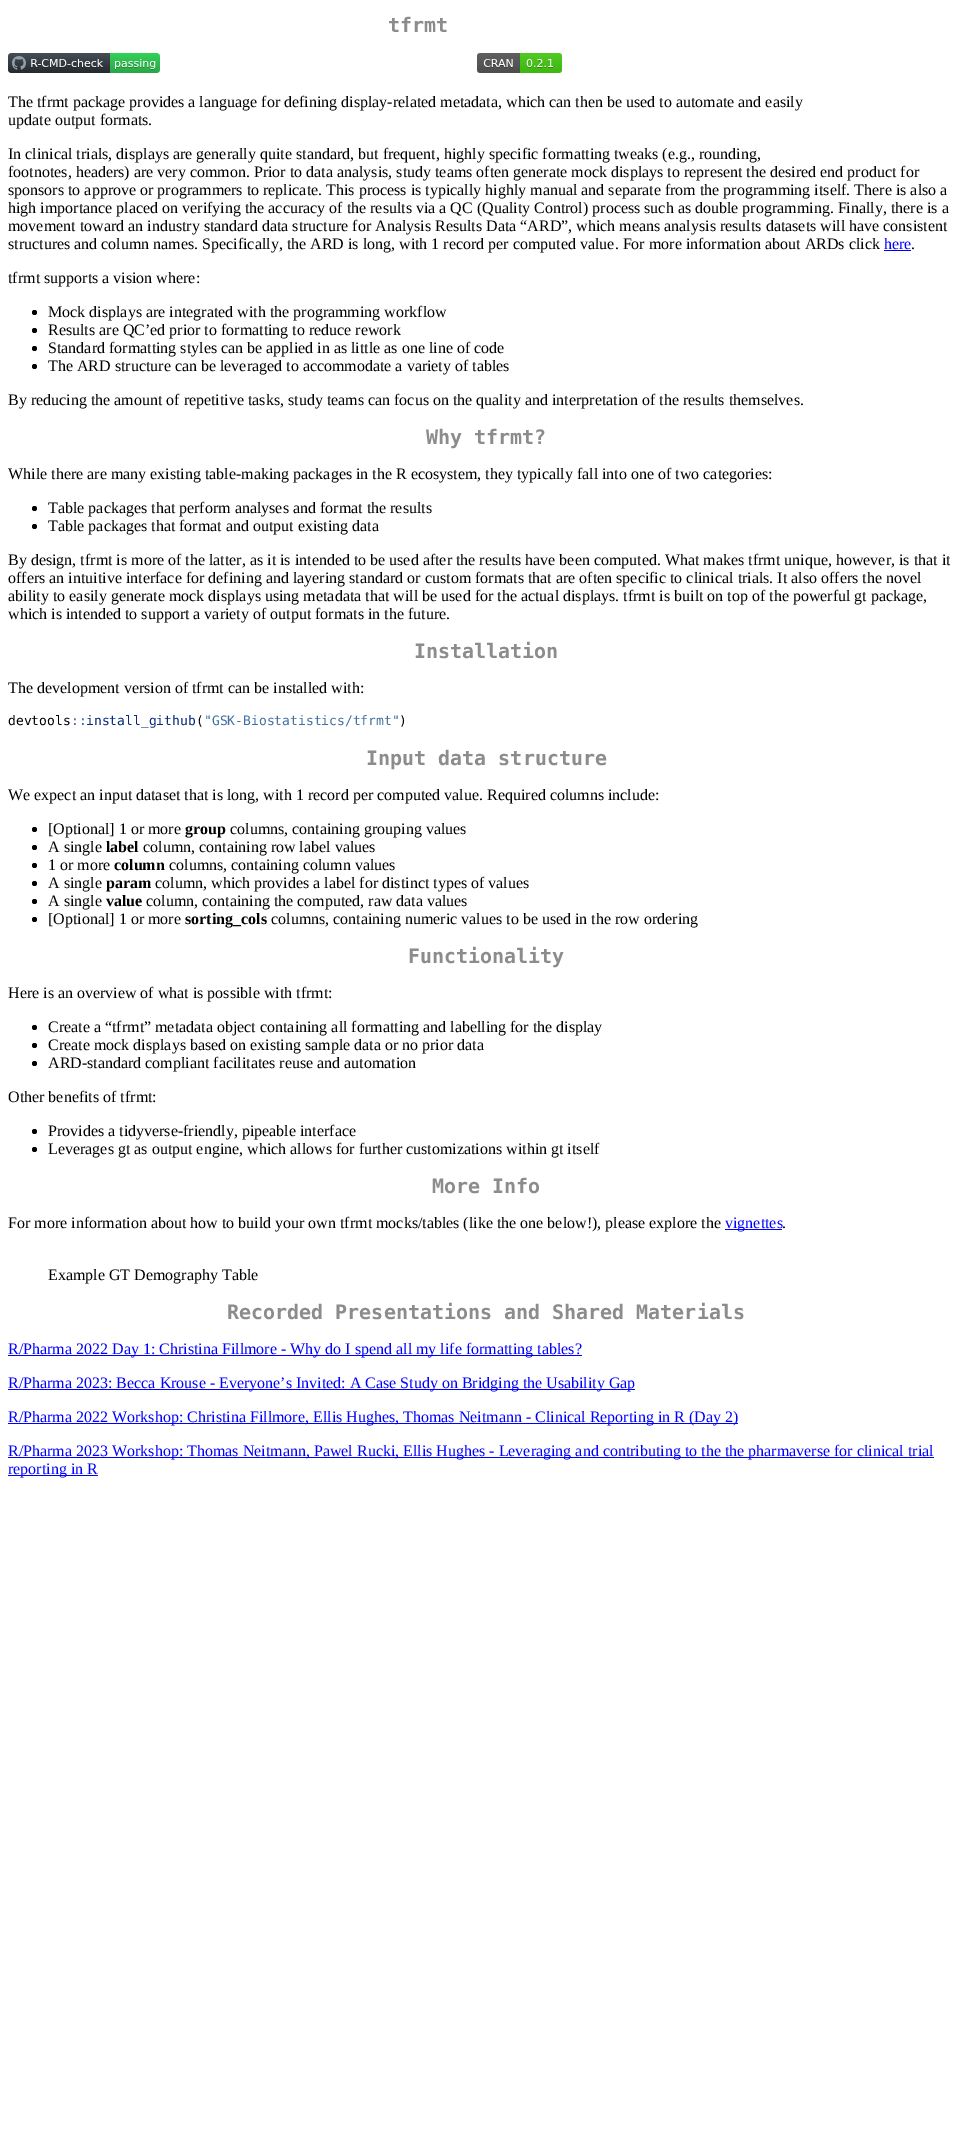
%!PS
<< /PageSize [972 2138] >> setpagedevice
/f/fill load def
/C { dup -16 bitshift 255 div exch dup -8 bitshift 255 and 255 div exch 255 and 255 div setrgbcolor } def
/F { [ exch dup neg 0 0 3 -1 roll 0 0 ] selectfont } def
/T { moveto show } def
/R { rectfill } def
/O { newpath 0 360 arc closepath } def
/I { 5 dict begin { /h /w /y /x /name } { exch def } forall
  gsave x y translate w h scale
  w h 8 [w 0 0 h 0 0] name (r) file false 3 colorimage grestore end } def
0 2138 translate 1 -1 scale
4 setmiterlimit
16#FFFFFF C
0 0 972 2138 R
/DejaVuSansMono-Bold 20 F
16#8C8C8C C
(tfrmt) 388 32 T
(1.rgb) 8 53 152 20 I
(2.rgb) 477 53 85 20 I
/LiberationSerif-Regular 16 F
16#000000 C
(The tfrmt package provides a language for defining display-related metadata, which can then be used to automate and easily) 8 107 T
(update output formats.) 8 125 T
(In clinical trials, displays are generally quite standard, but frequent, highly specific formatting tweaks \(e.g., rounding,) 8 159 T
(footnotes, headers\) are very common. Prior to data analysis, study teams often generate mock displays to represent the desired end product for) 8 177 T
(sponsors to approve or programmers to replicate. This process is typically highly manual and separate from the programming itself. There is also a) 8 195 T
(high importance placed on verifying the accuracy of the results via a QC \(Quality Control\) process such as double programming. Finally, there is a) 8 213 T
(movement toward an industry standard data structure for Analysis Results Data “ARD”, which means analysis results datasets will have consistent) 8 231 T
(structures and column names. Specifically, the ARD is long, with 1 record per computed value. For more information about ARDs click) 8 249 T
16#0000FF C
(here) 884 249 T
884 250 27 1 R
16#000000 C
(.) 911 249 T
(tfrmt supports a vision where:) 8 283 T
34.5 312.5 2.5 O f
(Mock displays are integrated with the programming workflow) 48 317 T
34.5 330.5 2.5 O f
(Results are QC’ed prior to formatting to reduce rework) 48 335 T
34.5 348.5 2.5 O f
(Standard formatting styles can be applied in as little as one line of code) 48 353 T
34.5 366.5 2.5 O f
(The ARD structure can be leveraged to accommodate a variety of tables) 48 371 T
(By reducing the amount of repetitive tasks, study teams can focus on the quality and interpretation of the results themselves.) 8 405 T
/DejaVuSansMono-Bold 20 F
16#8C8C8C C
(Why tfrmt?) 426 444 T
/LiberationSerif-Regular 16 F
16#000000 C
(While there are many existing table-making packages in the R ecosystem, they typically fall into one of two categories:) 8 479 T
34.5 508.5 2.5 O f
(Table packages that perform analyses and format the results) 48 513 T
34.5 526.5 2.5 O f
(Table packages that format and output existing data) 48 531 T
(By design, tfrmt is more of the latter, as it is intended to be used after the results have been computed. What makes tfrmt unique, however, is that it) 8 565 T
(offers an intuitive interface for defining and layering standard or custom formats that are often specific to clinical trials. It also offers the novel) 8 583 T
(ability to easily generate mock displays using metadata that will be used for the actual displays. tfrmt is built on top of the powerful gt package,) 8 601 T
(which is intended to support a variety of output formats in the future.) 8 619 T
/DejaVuSansMono-Bold 20 F
16#8C8C8C C
(Installation) 414 658 T
/LiberationSerif-Regular 16 F
16#000000 C
(The development version of tfrmt can be installed with:) 8 693 T
/DejaVuSansMono-Regular 13 F
(devtools) 8 725 T
16#4070A0 C
(::) 71 725 T
16#06287E C
(install_github) 86 725 T
16#000000 C
(\() 196 725 T
16#4070A0 C
("GSK-Biostatistics/tfrmt") 204 725 T
16#000000 C
(\)) 399 725 T
/DejaVuSansMono-Bold 20 F
16#8C8C8C C
(Input data structure) 366 765 T
/LiberationSerif-Regular 16 F
16#000000 C
(We expect an input dataset that is long, with 1 record per computed value. Required columns include:) 8 800 T
34.5 829.5 2.5 O f
([Optional] 1 or more) 48 834 T
/LiberationSerif-Bold 16 F
(group) 185 834 T
/LiberationSerif-Regular 16 F
(columns, containing grouping values) 230 834 T
34.5 847.5 2.5 O f
(A single) 48 852 T
/LiberationSerif-Bold 16 F
(label) 106 852 T
/LiberationSerif-Regular 16 F
(column, containing row label values) 143 852 T
34.5 865.5 2.5 O f
(1 or more) 48 870 T
/LiberationSerif-Bold 16 F
(column) 114 870 T
/LiberationSerif-Regular 16 F
(columns, containing column values) 169 870 T
34.5 883.5 2.5 O f
(A single) 48 888 T
/LiberationSerif-Bold 16 F
(param) 106 888 T
/LiberationSerif-Regular 16 F
(column, which provides a label for distinct types of values) 155 888 T
34.5 901.5 2.5 O f
(A single) 48 906 T
/LiberationSerif-Bold 16 F
(value) 106 906 T
/LiberationSerif-Regular 16 F
(column, containing the computed, raw data values) 146 906 T
34.5 919.5 2.5 O f
([Optional] 1 or more) 48 924 T
/LiberationSerif-Bold 16 F
(sorting_cols) 185 924 T
/LiberationSerif-Regular 16 F
(columns, containing numeric values to be used in the row ordering) 271 924 T
/DejaVuSansMono-Bold 20 F
16#8C8C8C C
(Functionality) 408 963 T
/LiberationSerif-Regular 16 F
16#000000 C
(Here is an overview of what is possible with tfrmt:) 8 998 T
34.5 1027.5 2.5 O f
(Create a “tfrmt” metadata object containing all formatting and labelling for the display) 48 1032 T
34.5 1045.5 2.5 O f
(Create mock displays based on existing sample data or no prior data) 48 1050 T
34.5 1063.5 2.5 O f
(ARD-standard compliant facilitates reuse and automation) 48 1068 T
(Other benefits of tfrmt:) 8 1102 T
34.5 1131.5 2.5 O f
(Provides a tidyverse-friendly, pipeable interface) 48 1136 T
34.5 1149.5 2.5 O f
(Leverages gt as output engine, which allows for further customizations within gt itself) 48 1154 T
/DejaVuSansMono-Bold 20 F
16#8C8C8C C
(More Info) 432 1193 T
/LiberationSerif-Regular 16 F
16#000000 C
(For more information about how to build your own tfrmt mocks/tables \(like the one below!\), please explore the) 8 1228 T
16#0000FF C
725 1229 57 1 R
(vignettes) 725 1228 T
16#000000 C
(.) 782 1228 T
(Example GT Demography Table) 48 1280 T
/DejaVuSansMono-Bold 20 F
16#8C8C8C C
(Recorded Presentations and Shared Materials) 227 1319 T
16#0000FF C
8 1355 574 1 R
/LiberationSerif-Regular 16 F
(R/Pharma 2022 Day 1: Christina Fillmore - Why do I spend all my life formatting tables?) 8 1354 T
8 1389 627 1 R
(R/Pharma 2023: Becca Krouse - Everyone’s Invited: A Case Study on Bridging the Usability Gap) 8 1388 T
8 1423 730 1 R
(R/Pharma 2022 Workshop: Christina Fillmore, Ellis Hughes, Thomas Neitmann - Clinical Reporting in R \(Day 2\)) 8 1422 T
8 1457 926 1 R
(R/Pharma 2023 Workshop: Thomas Neitmann, Pawel Rucki, Ellis Hughes - Leveraging and contributing to the the pharmaverse for clinical trial) 8 1456 T
8 1475 90 1 R
(reporting in R) 8 1474 T
showpage
